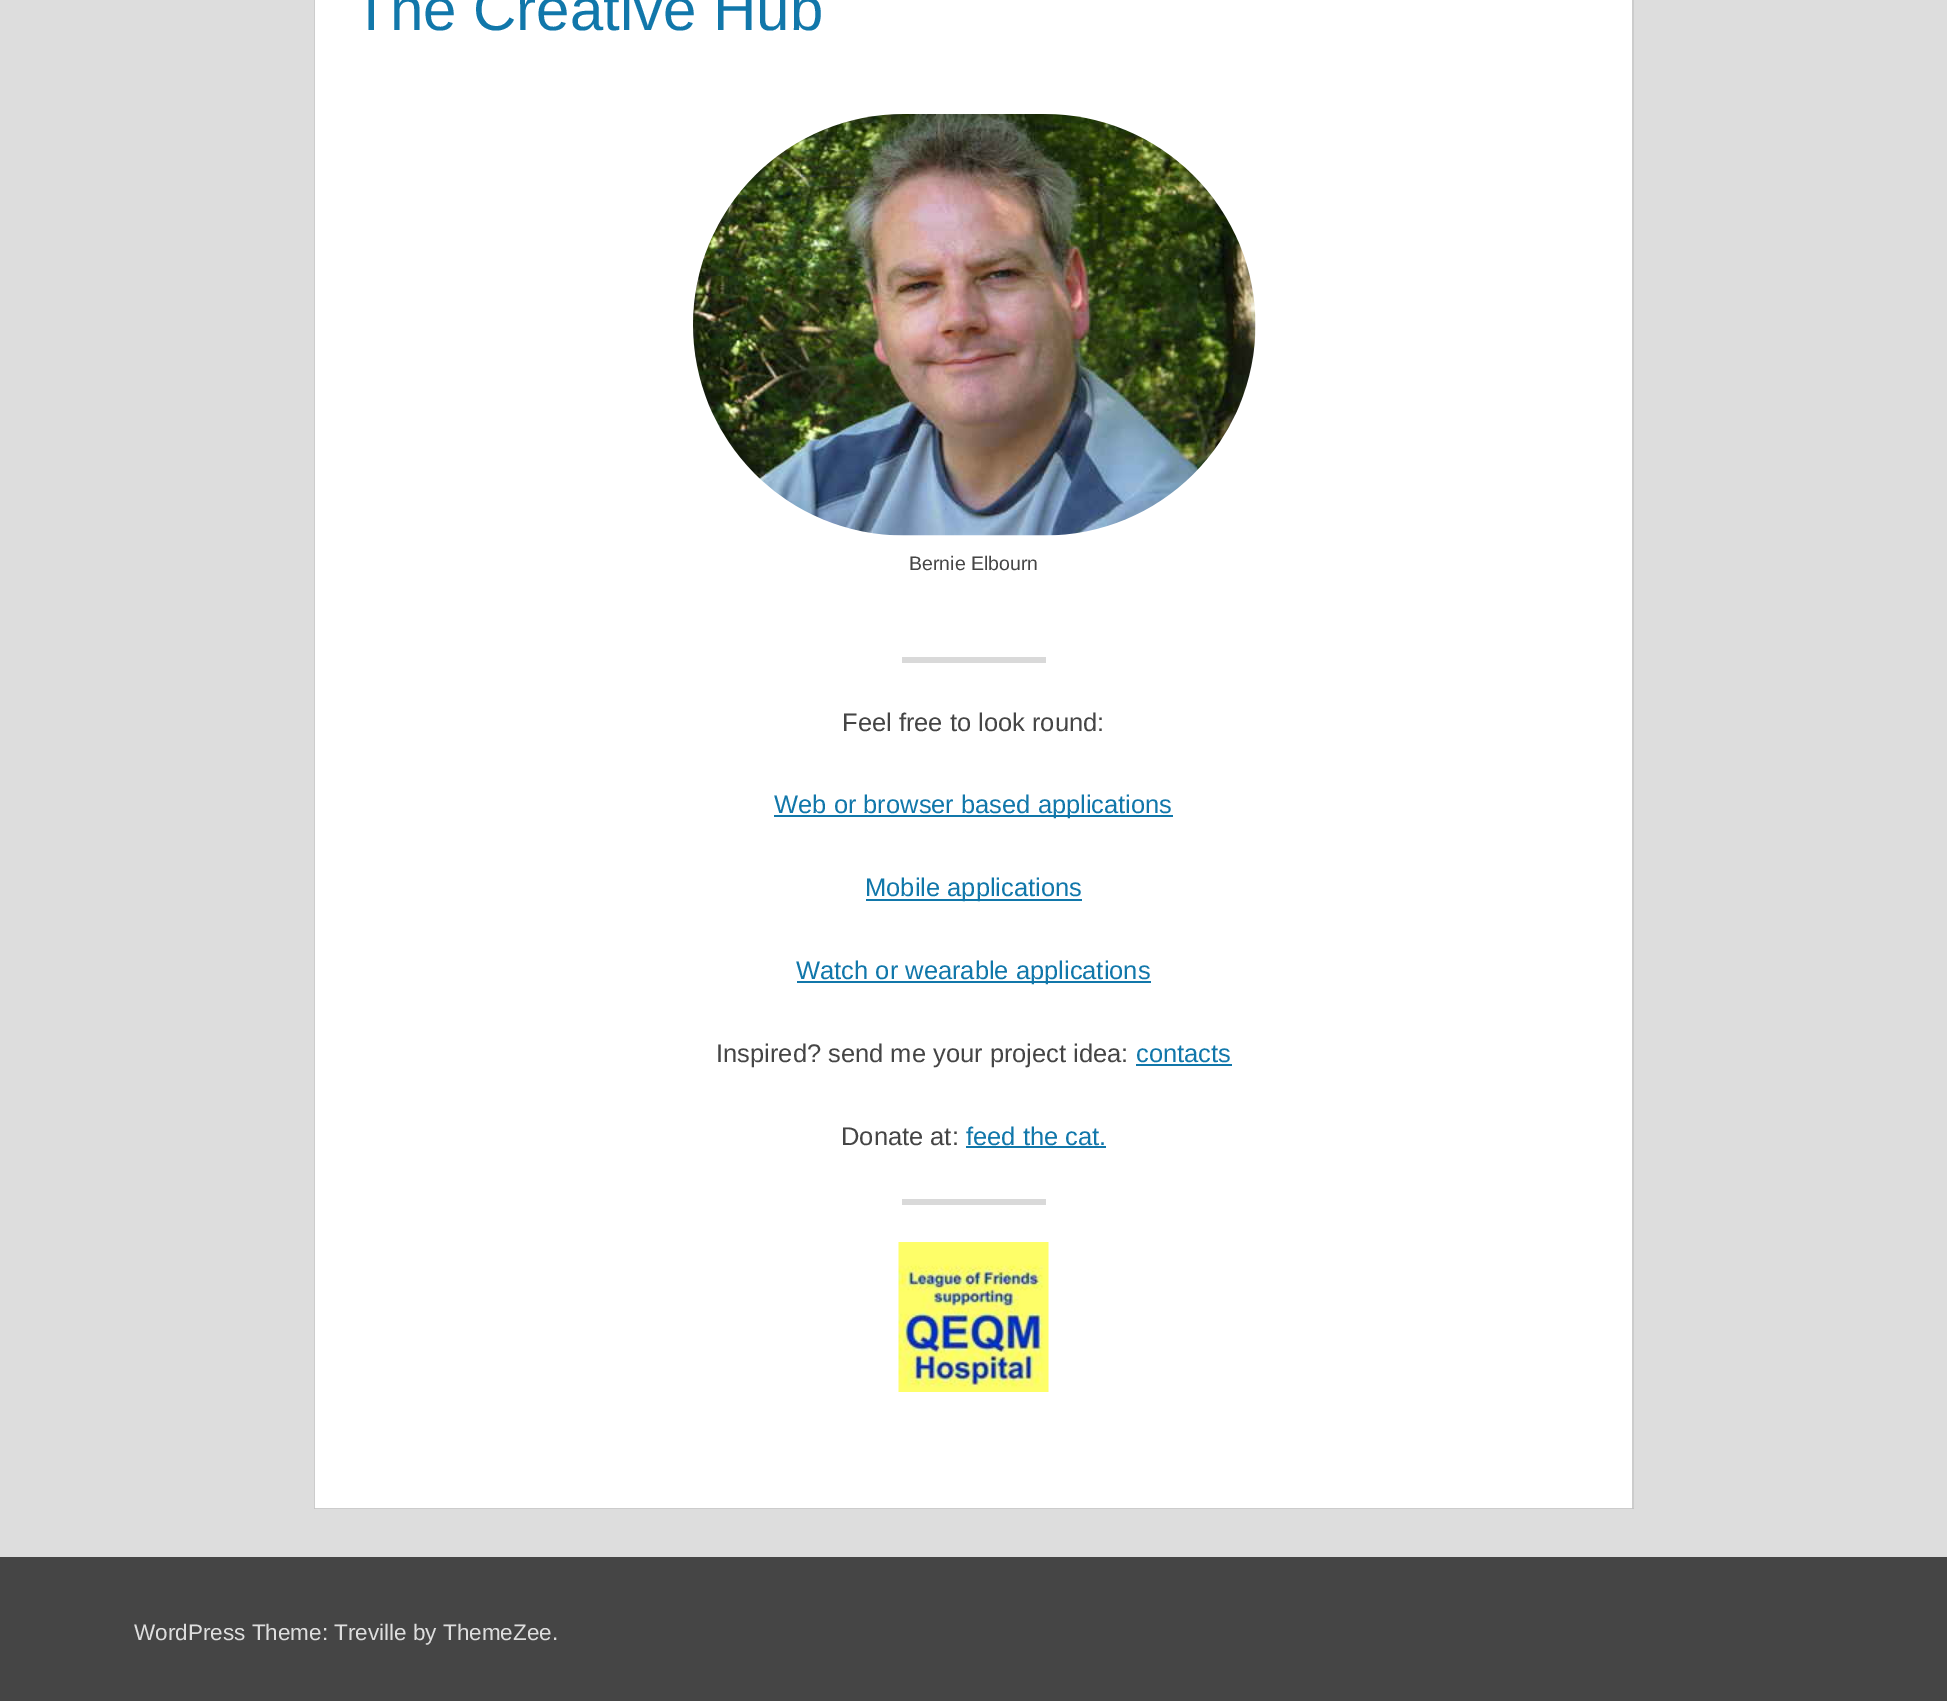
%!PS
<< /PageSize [1947 1701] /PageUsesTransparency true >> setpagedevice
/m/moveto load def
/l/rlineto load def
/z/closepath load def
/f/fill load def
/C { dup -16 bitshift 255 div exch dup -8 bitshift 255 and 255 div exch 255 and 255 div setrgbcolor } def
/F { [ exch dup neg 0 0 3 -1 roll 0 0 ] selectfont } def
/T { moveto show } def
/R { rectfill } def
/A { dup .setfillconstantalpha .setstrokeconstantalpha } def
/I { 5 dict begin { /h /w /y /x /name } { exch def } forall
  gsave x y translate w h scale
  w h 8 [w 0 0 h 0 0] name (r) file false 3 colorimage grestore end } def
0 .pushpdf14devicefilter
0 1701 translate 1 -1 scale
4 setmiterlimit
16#DDDDDD C
0 0 1947 1701 R
16#FFFFFF C
314 0 1320 1509 R
16#CCCCCC C
1634 -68 m 0 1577 l -2 -1 l 0 -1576 l z f
0.2 A
16#000000 C
1634 1509 m -1320 0 l 1 -1 l 1317 0 l z f
314 1509 m 0 -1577 l 1 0 l 0 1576 l z f
/LiberationSans-Regular 60 F
1 A
16#1177AA C
(The Creative Hub) 353 30 T
(1.rgb) 693 114 563 422 I
/LiberationSans-Regular 19.5 F
16#454545 C
(Bernie Elbourn) 909 570 T
16#D9D9D9 C
902 657 144 6 R
/LiberationSans-Regular 25.5 F
16#454545 C
(Feel free to look round:) 842 731 T
16#1177AA C
774 815 399 2 R
(Web or browser based applications) 774 813 T
866 899 216 2 R
(Mobile applications) 865 896 T
797 981 354 2 R
(Watch or wearable applications) 796 979 T
16#454545 C
(Inspired? send me your project idea:) 716 1062 T
16#1177AA C
(contacts) 1136 1062 T
1136 1064 96 2 R
16#454545 C
(Donate at:) 841 1145 T
16#1177AA C
(feed the cat.) 966 1145 T
966 1146 140 2 R
16#D9D9D9 C
902 1199 144 6 R
(2.rgb) 898 1242 151 150 I
16#454545 C
0 1557 1947 144 R
/LiberationSans-Regular 22.5 F
16#DDDDDD C
(WordPress Theme: Treville by ThemeZee.) 134 1640 T
.poppdf14devicefilter showpage
